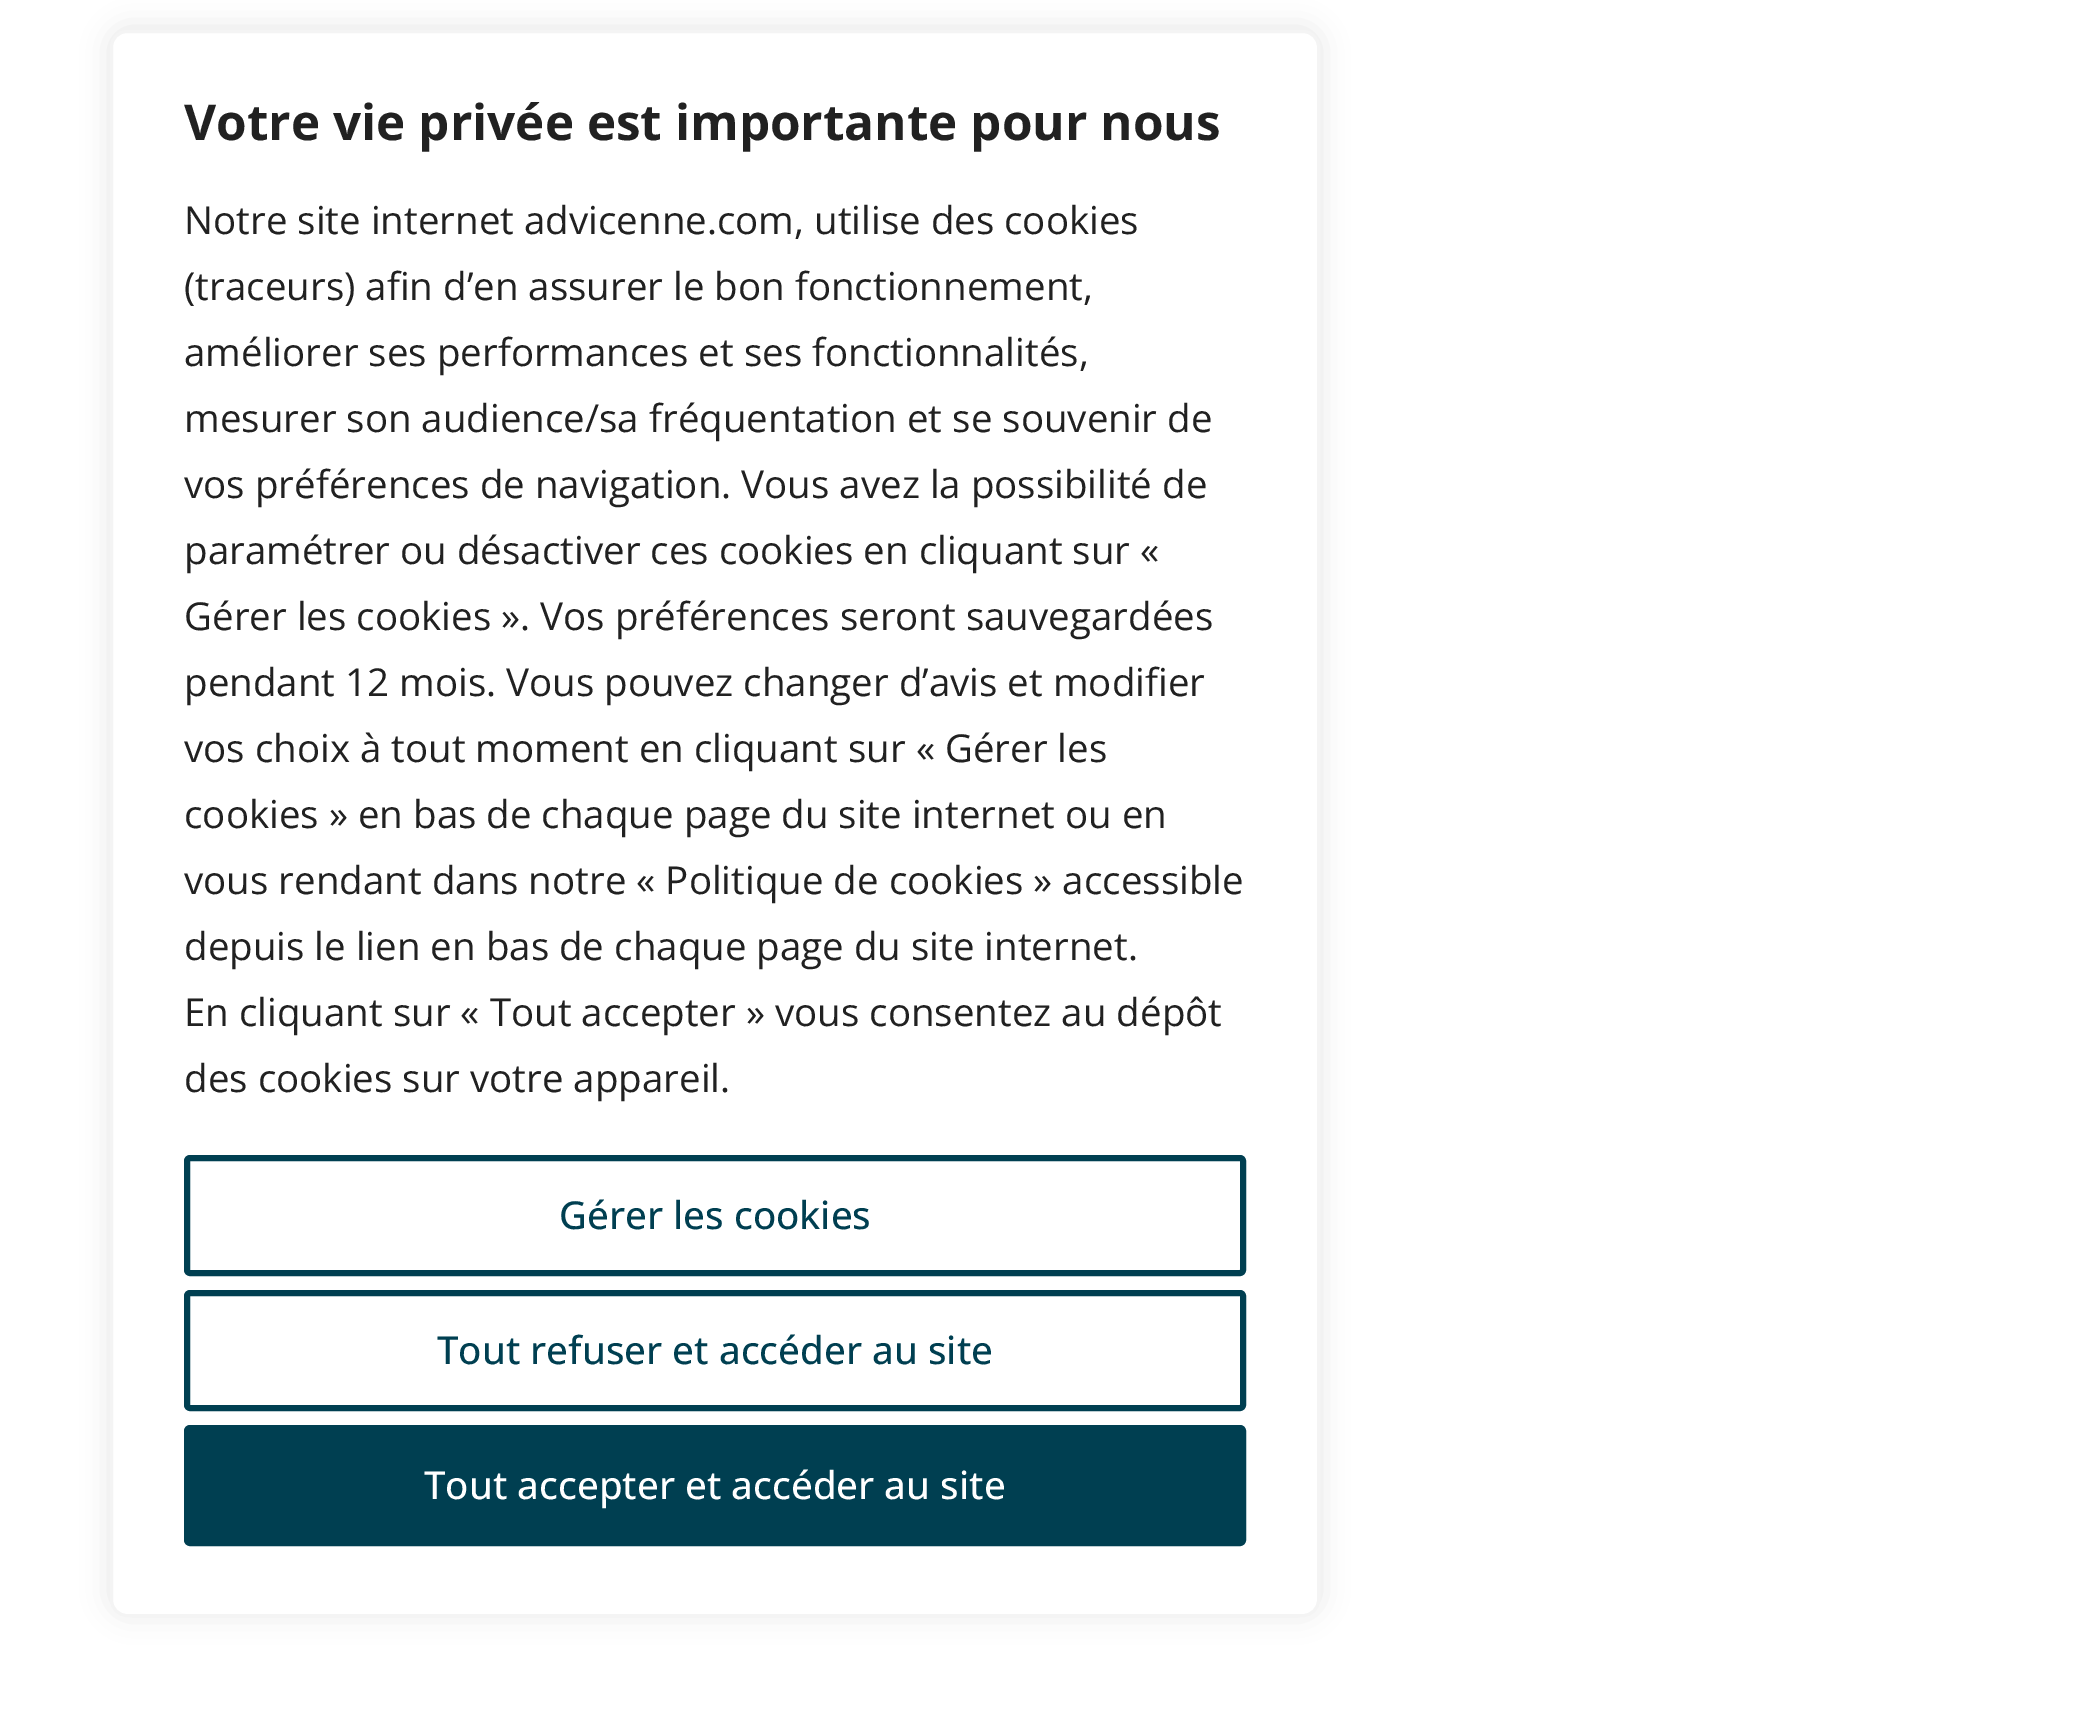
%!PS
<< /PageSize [2095 1726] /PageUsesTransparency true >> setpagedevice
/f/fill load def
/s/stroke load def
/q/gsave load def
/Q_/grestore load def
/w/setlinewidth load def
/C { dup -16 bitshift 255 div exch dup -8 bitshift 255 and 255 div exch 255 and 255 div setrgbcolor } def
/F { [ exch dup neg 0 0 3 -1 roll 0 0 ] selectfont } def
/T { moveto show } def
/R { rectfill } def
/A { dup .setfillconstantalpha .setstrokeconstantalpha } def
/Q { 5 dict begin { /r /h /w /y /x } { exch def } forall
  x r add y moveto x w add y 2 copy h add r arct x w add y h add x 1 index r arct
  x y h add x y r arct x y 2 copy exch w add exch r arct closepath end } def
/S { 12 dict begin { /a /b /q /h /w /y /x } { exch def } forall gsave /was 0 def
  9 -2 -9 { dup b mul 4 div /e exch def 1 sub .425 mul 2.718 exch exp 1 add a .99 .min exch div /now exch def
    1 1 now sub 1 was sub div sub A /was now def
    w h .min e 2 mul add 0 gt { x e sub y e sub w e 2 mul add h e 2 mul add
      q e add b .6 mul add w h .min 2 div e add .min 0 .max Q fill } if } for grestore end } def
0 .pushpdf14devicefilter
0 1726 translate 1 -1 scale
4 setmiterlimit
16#FFFFFF C
0 0 2095 1726 R
16#ACABAB C
110 28 1210 1586 17 14 .3 S
16#FFFFFF C
111.5 31.5 1207 1584 15.5 Q q f Q_
16#F4F4F4 C
3 w
s
/OpenSans-Bold 49.5 F
16#212121 C
(Votre vie privée est importante pour nous) 184 140 T
/OpenSans-Regular 38.5 F
(Notre site internet advicenne.com, utilise des cookies) 184 234 T
(\(traceurs\) afin d’en assurer le bon fonctionnement,) 184 300 T
(améliorer ses performances et ses fonctionnalités,) 184 366 T
(mesurer son audience/sa fréquentation et se souvenir de) 184 432 T
(vos préférences de navigation. Vous avez la possibilité de) 184 498 T
(paramétrer ou désactiver ces cookies en cliquant sur «) 184 564 T
(Gérer les cookies ». Vos préférences seront sauvegardées) 184 630 T
(pendant 12 mois. Vous pouvez changer d’avis et modifier) 184 696 T
(vos choix à tout moment en cliquant sur « Gérer les) 184 762 T
(cookies » en bas de chaque page du site internet ou en) 184 828 T
(vous rendant dans notre « Politique de cookies » accessible) 184 894 T
(depuis le lien en bas de chaque page du site internet.) 184 960 T
(En cliquant sur « Tout accepter » vous consentez au dépôt) 184 1026 T
(des cookies sur votre appareil.) 184 1092 T
16#003F51 C
6 w
187 1158 1056 115 3 Q s
/OpenSans-Medium 38.5 F
(Gérer les cookies) 559 1229 T
187 1293 1056 115 3 Q s
(Tout refuser et accéder au site) 437 1364 T
187 1428 1056 115 3 Q q f Q_
s
16#FFFFFF C
(Tout accepter et accéder au site) 424 1499 T
.poppdf14devicefilter showpage
